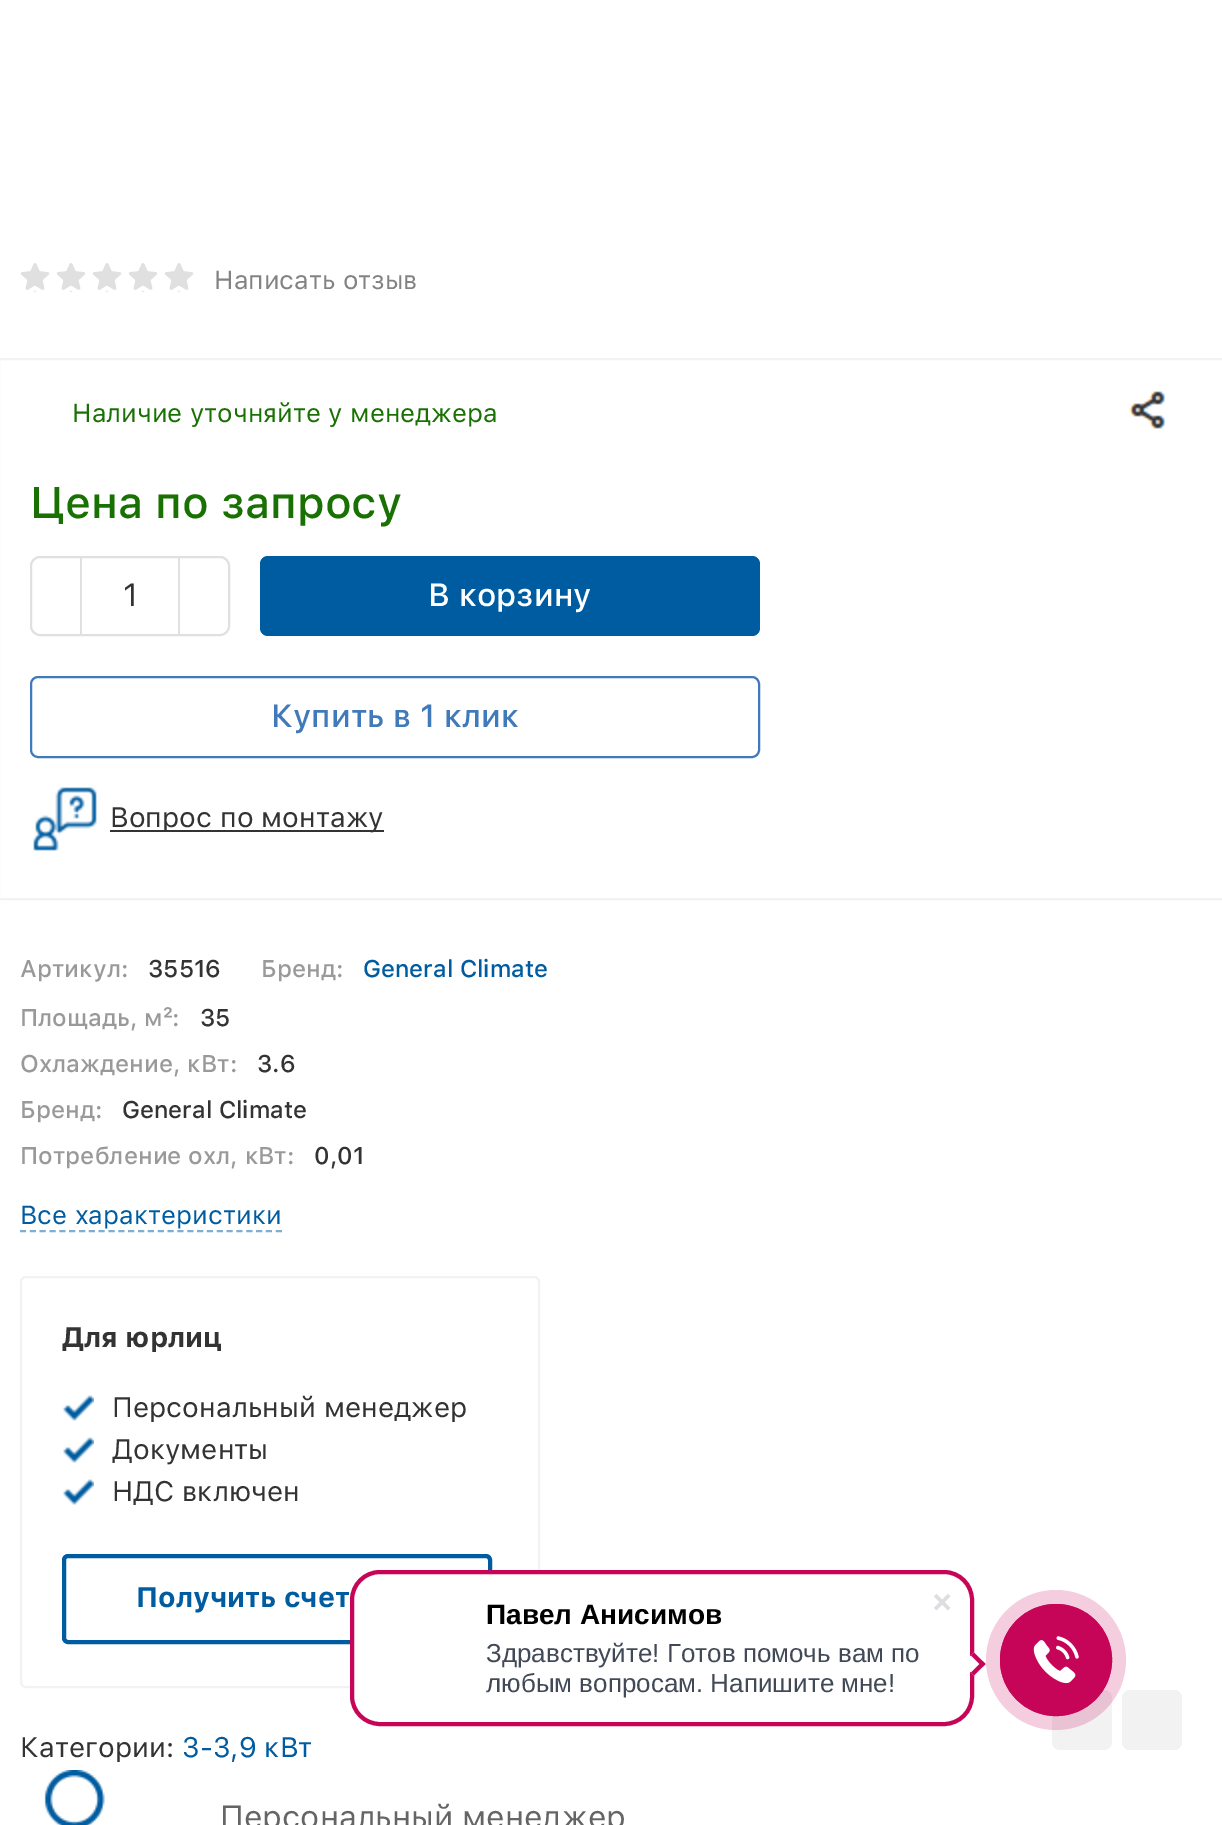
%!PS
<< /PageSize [1222 1825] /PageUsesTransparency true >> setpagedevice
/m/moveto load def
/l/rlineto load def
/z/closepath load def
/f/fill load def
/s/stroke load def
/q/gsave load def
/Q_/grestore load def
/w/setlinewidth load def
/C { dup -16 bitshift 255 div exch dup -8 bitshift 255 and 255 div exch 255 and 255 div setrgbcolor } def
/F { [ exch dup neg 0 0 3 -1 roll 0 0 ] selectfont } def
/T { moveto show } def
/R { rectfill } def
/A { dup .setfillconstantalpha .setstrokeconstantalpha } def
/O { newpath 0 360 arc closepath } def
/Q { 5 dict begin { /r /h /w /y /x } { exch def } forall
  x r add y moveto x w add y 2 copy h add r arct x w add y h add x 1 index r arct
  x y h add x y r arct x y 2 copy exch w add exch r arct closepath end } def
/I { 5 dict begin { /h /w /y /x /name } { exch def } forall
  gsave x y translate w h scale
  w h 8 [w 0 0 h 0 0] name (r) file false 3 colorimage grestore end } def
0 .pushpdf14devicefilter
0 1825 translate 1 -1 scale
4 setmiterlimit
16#FFFFFF C
0 0 1222 1825 R
(1.rgb) 20 263 30 29 I
(1.rgb) 56 263 30 29 I
(1.rgb) 92 263 30 29 I
(1.rgb) 128 263 30 29 I
(1.rgb) 164 263 30 29 I
/SFProText-Regular 26 F
16#828282 C
(Написать отзыв) 214 289 T
16#F2F2F2 C
2 w
-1 359 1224 540 rectstroke
16#187102 C
(Наличие уточняйте у менеджера) 72 422 T
/SFProText-Medium 44 F
(Цена по запросу) 30 518 T
16#E0E0E0 C
31 557 198 78 9 Q s
82 558 m 0 76 l -2 0 l 0 -76 l z 180 558 m 0 76 l -2 0 l 0 -76 l z eofill
/SFProText-Regular 32 F
16#333333 C
(1) 123 606 T
16#005CA0 C
260 556 500 80 8 Q f
/SFProText-Medium 32 F
16#FFFFFF C
(В корзину) 428 606 T
16#407ABA C
31 677 728 80 7 Q s
(Купить в 1 клик) 271 727 T
(2.rgb) 33 787 64 64 I
16#333333 C
110 830 274 2 R
/SFProText-Regular 28 F
(Вопрос по монтажу) 110 827 T
(3.rgb) 1129 391 38 38 I
/SFProText-Medium 24 F
16#999999 C
(Артикул:) 20 977 T
16#333333 C
(35516) 148 977 T
16#999999 C
(Бренд:) 261 977 T
16#005CA0 C
(General Climate) 363 977 T
16#999999 C
(Площадь, м²:) 20 1026 T
16#333333 C
(35) 200 1026 T
16#999999 C
(Охлаждение, кВт:) 20 1072 T
16#333333 C
(3.6) 257 1072 T
16#999999 C
(Бренд:) 20 1118 T
16#333333 C
(General Climate) 122 1118 T
16#999999 C
(Потребление охл, кВт:) 20 1164 T
16#333333 C
(0,01) 314 1164 T
/SFProText-Regular 26 F
16#005CA0 C
(Все характеристики) 20 1224 T
16#80AED0 C
[6 3.84] 0 setdash
20 1231 m 262 0 l s
16#F2F2F2 C
[] 0 setdash
21 1277 518 410 5 Q s
/SFProText-Bold 28 F
16#333333 C
(Для юрлиц) 62 1347 T
(4.rgb) 63 1395 31 26 I
/SFProText-Regular 28 F
(Персональный менеджер) 112 1417 T
(4.rgb) 63 1437 31 26 I
(Документы) 112 1459 T
(4.rgb) 63 1479 31 26 I
(НДС включен) 112 1501 T
16#005CA0 C
4 w
64 1556 426 86 4 Q s
/SFProText-Bold 28 F
(Получить счет) 136 1607 T
/SFProText-Regular 28 F
16#333333 C
(Категории:) 20 1757 T
16#005CA0 C
(3-3,9 кВт) 182 1757 T
16#F2F2F2 C
1052 1690 60 60 8 Q f
1122 1690 60 60 8 Q f
(5.rgb) 44 1770 61 55 I
/SFProText-Regular 32 F
16#656565 C
(Персональный менеджер) 220 1828 T
16#FFFFFF C
352 1572 620 152 28 Q q f Q_
16#C70558 C
s
/LiberationSans-Bold 28 F
16#000000 C
(Павел Анисимов) 486 1624 T
/LiberationSans-Regular 26 F
16#424956 C
(Здравствуйте! Готов помочь вам по) 486 1662 T
(любым вопросам. Напишите мне!) 486 1692 T
(6.rgb) 934 1594 17 17 I
16#FFFFFF C
962.5 1664 m 11.5 -11.5 l 11.5 11.5 l -11.5 11.5 l z f
16#C70558 C
971 1655.5 m 3 -3 l 11.5 11.5 l -3 3 l z f
971 1672.5 m 11.5 -11.5 l 3 3 l -11.5 11.5 l z f
0.2 A
1056 1660 70 O f
1 A
2 w
1056 1660 55 O s
1056 1660 56 O f
(7.rgb) 1033 1636 46 48 I
.poppdf14devicefilter showpage
